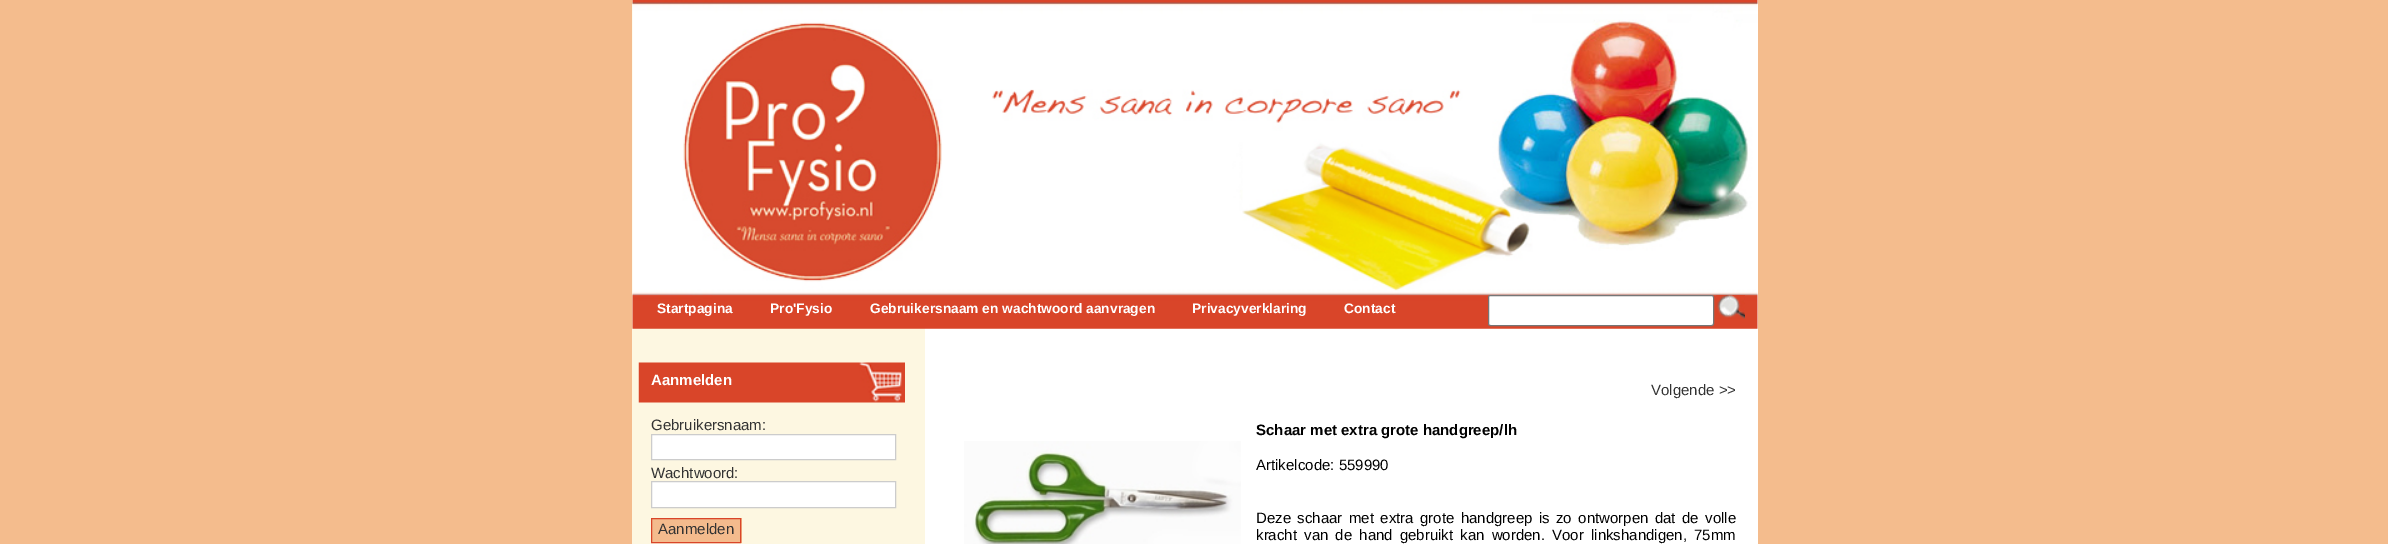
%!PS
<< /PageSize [2388 544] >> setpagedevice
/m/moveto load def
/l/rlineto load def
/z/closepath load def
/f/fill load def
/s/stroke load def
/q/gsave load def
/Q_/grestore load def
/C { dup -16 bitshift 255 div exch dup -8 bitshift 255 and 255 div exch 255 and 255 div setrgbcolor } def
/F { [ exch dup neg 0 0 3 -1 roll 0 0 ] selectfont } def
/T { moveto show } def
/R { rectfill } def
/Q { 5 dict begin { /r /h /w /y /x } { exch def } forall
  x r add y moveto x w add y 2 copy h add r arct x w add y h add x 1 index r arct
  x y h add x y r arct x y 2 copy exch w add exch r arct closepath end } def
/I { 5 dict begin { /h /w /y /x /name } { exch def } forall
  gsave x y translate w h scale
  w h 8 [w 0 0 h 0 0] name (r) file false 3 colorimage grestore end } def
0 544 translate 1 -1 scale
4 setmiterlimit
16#F4BC8D C
0 0 2388 544 R
16#FFFFFF C
925 0 833 544 R
16#FDF7E1 C
632 0 293 544 R
(1.rgb) 632 0 1126 329 I
/LiberationSans-Bold 13.75 F
16#FFFFFF C
(Startpagina) 657 313 T
(Pro'Fysio) 770 313 T
(Gebruikersnaam en wachtwoord aanvragen) 870 313 T
(Privacyverklaring) 1192 313 T
(Contact) 1344 313 T
1488.5 295.5 225 30 2 Q q f Q_
16#767676 C
s
(2.rgb) 1716 295 29 24 I
(3.rgb) 638 362 267 41 I
/LiberationSans-Bold 15 F
16#FFFFFF C
(Aanmelden) 651 385 T
/LiberationSans-Regular 15 F
16#333333 C
(Gebruikersnaam:) 651 430 T
16#FFFFFF C
651.5 434.5 m 244 0 l 0 25 l -244 0 l z q f Q_
16#CCCCCC C
s
16#333333 C
(Wachtwoord:) 651 478 T
16#FFFFFF C
651.5 481.5 m 244 0 l 0 26 l -244 0 l z q f Q_
16#CCCCCC C
s
16#F4BB8D C
652 518 90 25 R
16#D94529 C
651.5 518.5 89 24 rectstroke
16#333333 C
(Aanmelden) 658 534 T
(Volgende >>) 1651 395 T
(4.rgb) 964 441 277 103 I
/LiberationSans-Bold 15 F
16#000000 C
(Schaar met extra grote handgreep/lh) 1256 435 T
/LiberationSans-Regular 15 F
(Artikelcode: 559990) 1256 470 T
1256 523 m 2.25 0 32 (Deze schaar met extra grote handgreep is zo ontworpen dat de volle) widthshow
1256 540 m 3 0 32 (kracht van de hand gebruikt kan worden. Voor linkshandigen, 75mm) widthshow
showpage
